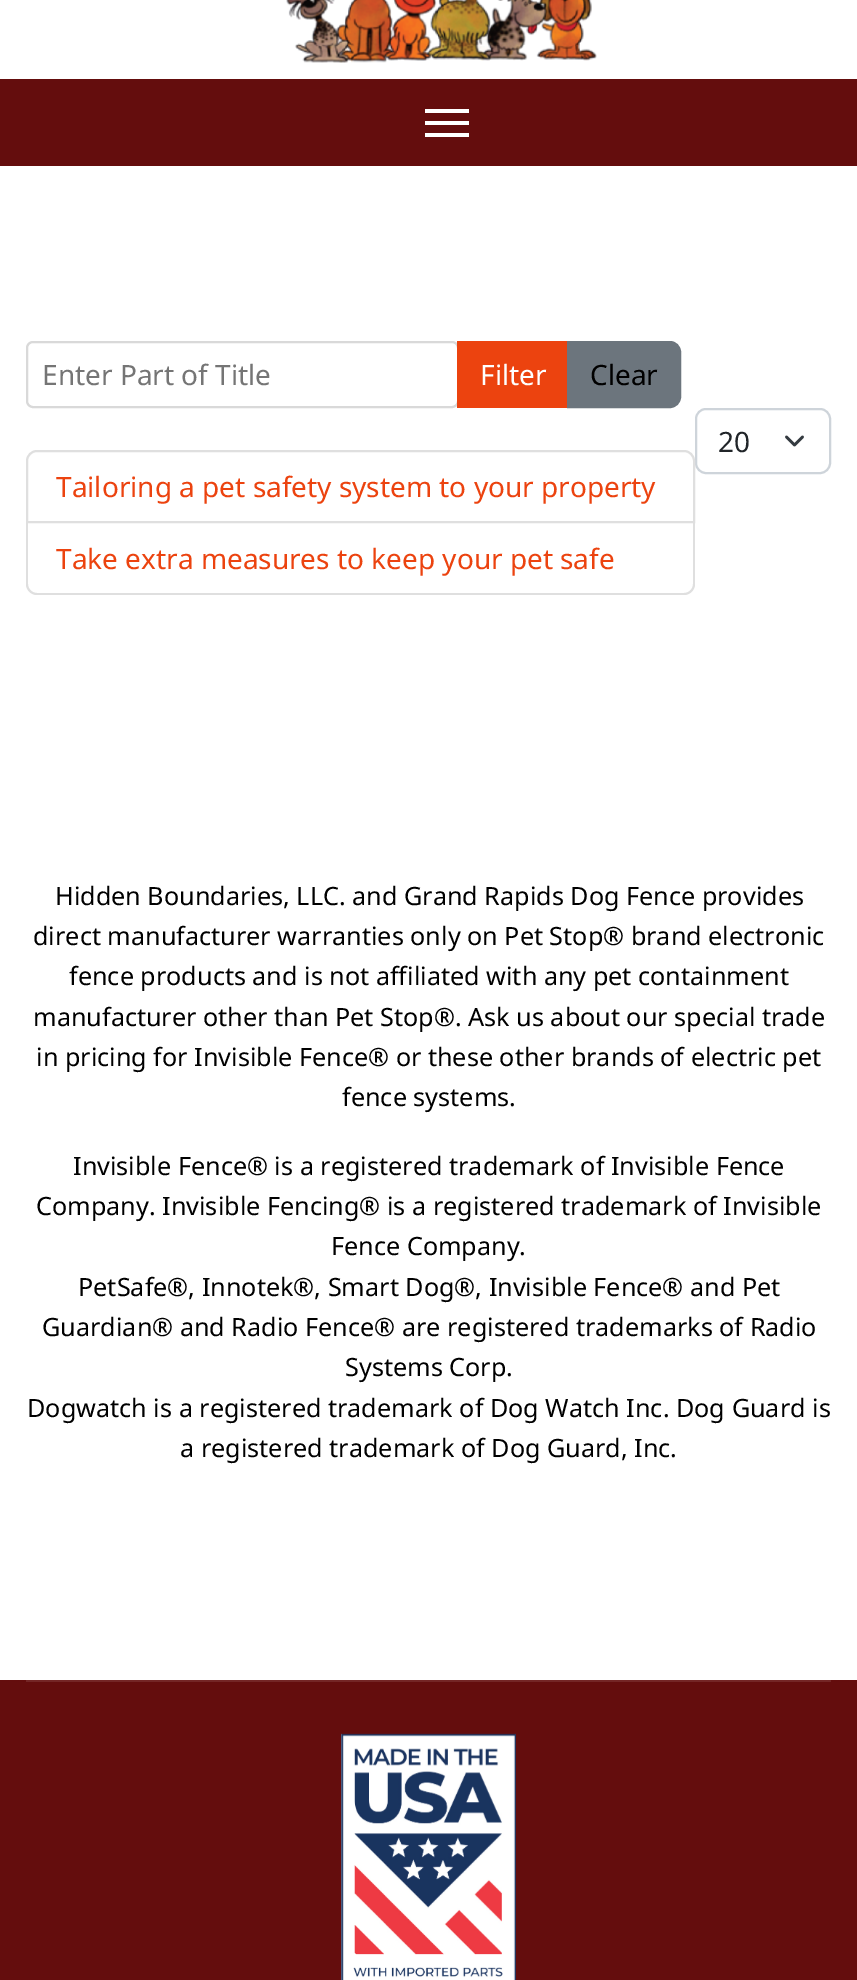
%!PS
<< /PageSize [857 1980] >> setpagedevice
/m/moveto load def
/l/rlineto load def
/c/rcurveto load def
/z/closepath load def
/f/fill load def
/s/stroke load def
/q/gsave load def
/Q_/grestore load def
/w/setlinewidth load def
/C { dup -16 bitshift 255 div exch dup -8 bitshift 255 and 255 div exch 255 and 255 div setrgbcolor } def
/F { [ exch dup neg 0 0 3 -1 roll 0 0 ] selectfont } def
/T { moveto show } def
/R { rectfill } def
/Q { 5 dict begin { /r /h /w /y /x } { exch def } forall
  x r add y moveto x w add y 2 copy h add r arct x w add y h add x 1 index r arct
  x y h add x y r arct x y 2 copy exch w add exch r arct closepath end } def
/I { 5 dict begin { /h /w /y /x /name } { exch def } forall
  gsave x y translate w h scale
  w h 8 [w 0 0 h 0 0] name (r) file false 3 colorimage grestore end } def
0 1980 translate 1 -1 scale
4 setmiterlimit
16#FFFFFF C
0 0 857 1980 R
(1.rgb) 286 0 311 63 I
16#640D0D C
0 79 857 87 R
16#FFFFFF C
425 109 44 4 R
425 121 44 4 R
425 133 44 4 R
16#D9D9D9 C
2 w
27 342 431 65 6 Q s
/NotoSans-Regular 28 F
16#757575 C
(Enter Part of Title) 42 385 T
16#EC430F C
457 341 110 67 R
16#FFFFFF C
(Filter) 480 385 T
16#6C757D C
568 342 m 102 0 l 5.5 0 10 4.5 10 10 c 0 45 l 0 5.5 -4.5 10 -10 10 c -102 0 l z q f Q_
s
16#000000 C
(Clear) 590 385 T
16#343A40 C
2.6 w
1 setlinecap
1 setlinejoin
786.5 437 m 8 8 l 8 -8 l s
16#CED4DA C
2 w
0 setlinecap
0 setlinejoin
696 409 134 64 10 Q s
16#212529 C
(20) 718 452 T
16#DFDFDF C
37 451 m 647 0 l 5.5 0 10 4.5 10 10 c 0 61 l -667 0 l 0 -61 l 0 -5.5 4.5 -10 10 -10 c z s
16#EC430F C
(Tailoring a pet safety system to your property) 56 497 T
16#DFDFDF C
26 523 m 669 0 l 0 61 l 0 6 -5 11 -11 11 c -647 0 l -6 0 -11 -5 -11 -11 c z 28 523 m 665 0 l 0 61 l 0 5 -4 9 -9 9 c -647 0 l -5 0 -9 -4 -9 -9 c z eofill
16#EC430F C
(Take extra measures to keep your pet safe) 56 569 T
/NotoSans-Regular 25.2 F
16#000000 C
(Hidden Boundaries, LLC. and Grand Rapids Dog Fence provides) 55 905 T
(direct manufacturer warranties only on Pet Stop® brand electronic) 33 945 T
(fence products and is not affiliated with any pet containment) 69 985 T
(manufacturer other than Pet Stop®. Ask us about our special trade) 33 1026 T
(in pricing for Invisible Fence® or these other brands of electric pet) 36 1066 T
(fence systems.) 342 1106 T
(Invisible Fence® is a registered trademark of Invisible Fence) 73 1175 T
(Company. Invisible Fencing® is a registered trademark of Invisible) 36 1215 T
(Fence Company.) 331 1255 T
(PetSafe®, Innotek®, Smart Dog®, Invisible Fence® and Pet) 78 1296 T
(Guardian® and Radio Fence® are registered trademarks of Radio) 42 1336 T
(Systems Corp.) 345 1376 T
(Dogwatch is a registered trademark of Dog Watch Inc. Dog Guard is) 27 1417 T
(a registered trademark of Dog Guard, Inc.) 180 1457 T
16#640D0D C
0 1680 857 300 R
16#742525 C
26 1680 805 2 R
(2.rgb) 341 1733 175 247 I
showpage
